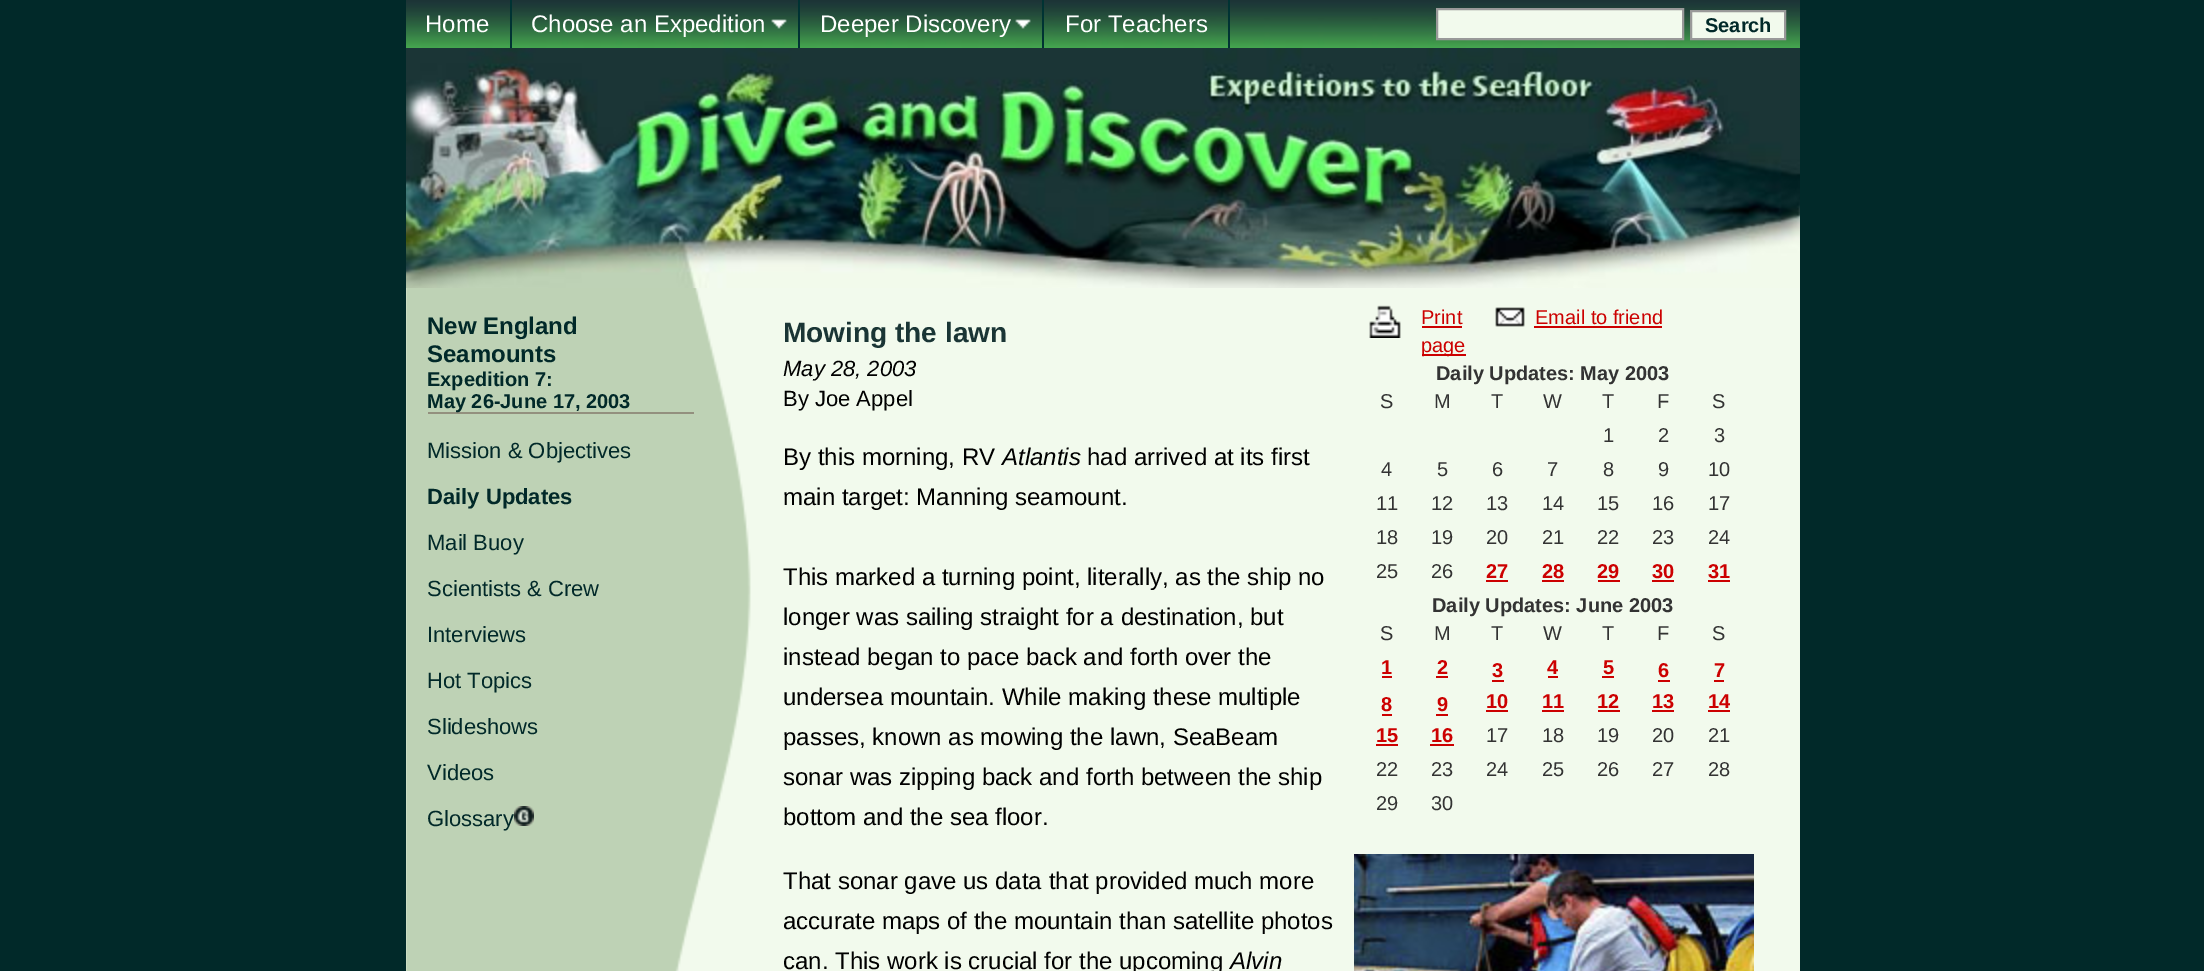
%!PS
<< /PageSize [2204 971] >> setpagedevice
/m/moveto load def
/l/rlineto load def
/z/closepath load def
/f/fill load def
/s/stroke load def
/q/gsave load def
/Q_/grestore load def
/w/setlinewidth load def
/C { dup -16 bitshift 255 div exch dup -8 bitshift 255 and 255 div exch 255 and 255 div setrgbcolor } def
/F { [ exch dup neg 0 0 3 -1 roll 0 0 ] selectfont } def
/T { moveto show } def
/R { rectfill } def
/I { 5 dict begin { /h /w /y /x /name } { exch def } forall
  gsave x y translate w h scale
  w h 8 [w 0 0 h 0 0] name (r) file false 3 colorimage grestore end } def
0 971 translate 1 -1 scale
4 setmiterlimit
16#012929 C
0 0 2204 971 R
(1.rgb) 406 0 974 48 I
16#003333 C
510 0 2 48 R
/LiberationSans-Regular 24 F
16#FFFFFF C
(Home) 425 32 T
(2.rgb) 771 19 16 10 I
16#003333 C
798 0 2 48 R
16#FFFFFF C
(Choose an Expedition) 531 32 T
(3.rgb) 1015 19 16 10 I
16#003333 C
1042 0 2 48 R
16#FFFFFF C
(Deeper Discovery) 820 32 T
16#003333 C
1228 0 2 48 R
16#FFFFFF C
(For Teachers) 1065 32 T
(4.rgb) 1380 0 420 48 I
16#F2FAED C
1437 9 m 246 0 l 0 30 l -246 0 l z q f Q_
16#999999 C
2 w
s
16#F2FAED C
1691 11 m 94 0 l 0 28 l -94 0 l z q f Q_
16#999999 C
s
/LiberationSans-Bold 20 F
16#012929 C
(Search) 1705 32 T
(5.rgb) 406 288 348 683 I
(6.rgb) 406 48 1394 240 I
16#93907E C
428 412 266 2 R
/LiberationSans-Bold 24 F
16#012929 C
(New England) 427 334 T
(Seamounts) 427 362 T
/LiberationSans-Bold 20 F
(Expedition 7:) 427 386 T
(May 26-June 17, 2003) 427 408 T
/LiberationSans-Regular 22 F
(Mission & Objectives) 427 458 T
/LiberationSans-Bold 22 F
(Daily Updates) 427 504 T
/LiberationSans-Regular 22 F
(Mail Buoy) 427 550 T
(Scientists & Crew) 427 596 T
(Interviews) 427 642 T
(Hot Topics) 427 688 T
(Slideshows) 427 734 T
(Videos) 427 780 T
(Glossary) 427 826 T
(7.rgb) 514 806 20 20 I
16#F2FAED C
754 288 1046 683 R
/LiberationSans-Bold 28 F
16#1A3535 C
(Mowing the lawn) 783 342 T
/LiberationSans-Italic 22 F
16#000000 C
(May 28, 2003) 783 376 T
/LiberationSans-Regular 22 F
(By Joe Appel) 783 406 T
(8.rgb) 1369 305 32 33 I
/LiberationSans-Regular 20 F
16#CC0000 C
(Print) 1421 324 T
1422 326 40 2 R
1422 354 44 2 R
(page) 1421 352 T
(9.rgb) 1495 307 30 20 I
(Email to friend) 1535 324 T
1534 326 128 2 R
/LiberationSans-Bold 20 F
16#333333 C
(Daily Updates: May 2003) 1436 380 T
/LiberationSans-Regular 20 F
(S) 1380 408 T
(M) 1434 408 T
(T) 1491 408 T
(W) 1543 408 T
(T) 1602 408 T
(F) 1657 408 T
(S) 1712 408 T
(1) 1603 442 T
(2) 1658 442 T
(3) 1714 442 T
(4) 1381 476 T
(5) 1437 476 T
(6) 1492 476 T
(7) 1547 476 T
(8) 1603 476 T
(9) 1658 476 T
(10) 1708 476 T
(11) 1376 510 T
(12) 1431 510 T
(13) 1486 510 T
(14) 1542 510 T
(15) 1597 510 T
(16) 1652 510 T
(17) 1708 510 T
(18) 1376 544 T
(19) 1431 544 T
(20) 1486 544 T
(21) 1542 544 T
(22) 1597 544 T
(23) 1652 544 T
(24) 1708 544 T
(25) 1376 578 T
(26) 1431 578 T
/LiberationSans-Bold 20 F
16#CC0000 C
(27) 1486 578 T
1486 580 22 2 R
(28) 1542 578 T
1542 580 22 2 R
(29) 1597 578 T
1598 580 22 2 R
(30) 1652 578 T
1652 580 22 2 R
(31) 1708 578 T
1708 580 22 2 R
16#333333 C
(Daily Updates: June 2003) 1432 612 T
/LiberationSans-Regular 20 F
(S) 1380 640 T
(M) 1434 640 T
(T) 1491 640 T
(W) 1543 640 T
(T) 1602 640 T
(F) 1657 640 T
(S) 1712 640 T
/LiberationSans-Bold 20 F
16#CC0000 C
(1) 1381 674 T
1382 676 10 2 R
(2) 1437 674 T
1436 676 12 2 R
(3) 1492 677 T
1492 680 12 2 R
(4) 1547 674 T
1548 676 10 2 R
(5) 1603 674 T
1602 676 12 2 R
(6) 1658 677 T
1658 680 12 2 R
(7) 1714 677 T
1714 680 10 2 R
(8) 1381 711 T
1382 714 10 2 R
(9) 1437 711 T
1436 714 12 2 R
(10) 1486 708 T
1486 710 22 2 R
(11) 1542 708 T
1542 710 22 2 R
(12) 1597 708 T
1598 710 22 2 R
(13) 1652 708 T
1652 710 22 2 R
(14) 1708 708 T
1708 710 22 2 R
(15) 1376 742 T
1376 744 22 2 R
(16) 1431 742 T
1430 744 24 2 R
/LiberationSans-Regular 20 F
16#333333 C
(17) 1486 742 T
(18) 1542 742 T
(19) 1597 742 T
(20) 1652 742 T
(21) 1708 742 T
(22) 1376 776 T
(23) 1431 776 T
(24) 1486 776 T
(25) 1542 776 T
(26) 1597 776 T
(27) 1652 776 T
(28) 1708 776 T
(29) 1376 810 T
(30) 1431 810 T
(10.rgb) 1354 854 400 117 I
/LiberationSans-Regular 24 F
16#000000 C
(By this morning, RV) 783 465 T
/LiberationSans-Italic 24 F
(Atlantis) 1002 465 T
/LiberationSans-Regular 24 F
(had arrived at its first) 1087 465 T
(main target: Manning seamount.) 783 505 T
(This marked a turning point, literally, as the ship no) 783 585 T
(longer was sailing straight for a destination, but) 783 625 T
(instead began to pace back and forth over the) 783 665 T
(undersea mountain. While making these multiple) 783 705 T
(passes, known as mowing the lawn, SeaBeam) 783 745 T
(sonar was zipping back and forth between the ship) 783 785 T
(bottom and the sea floor.) 783 825 T
(That sonar gave us data that provided much more) 783 889 T
(accurate maps of the mountain than satellite photos) 783 929 T
(can. This work is crucial for the upcoming) 783 969 T
/LiberationSans-Italic 24 F
(Alvin) 1230 969 T
showpage
